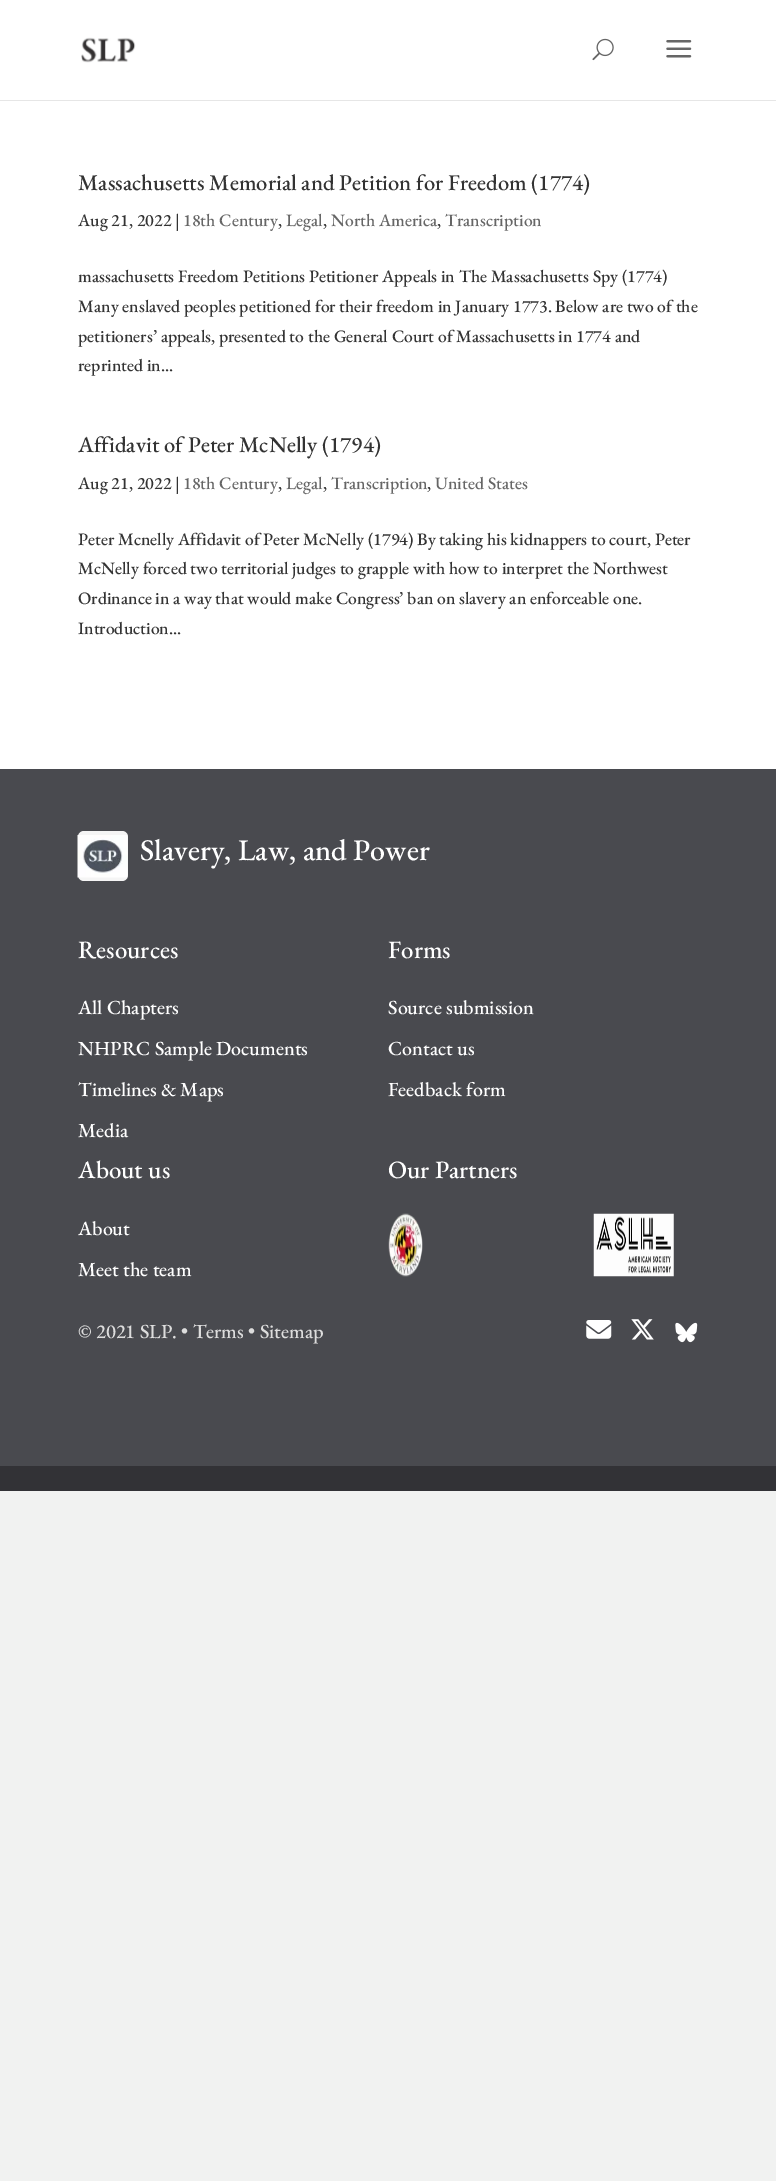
%!PS
<< /PageSize [776 2181] >> setpagedevice
/f/fill load def
/C { dup -16 bitshift 255 div exch dup -8 bitshift 255 and 255 div exch 255 and 255 div setrgbcolor } def
/F { [ exch dup neg 0 0 3 -1 roll 0 0 ] selectfont } def
/T { moveto show } def
/R { rectfill } def
/Q { 5 dict begin { /r /h /w /y /x } { exch def } forall
  x r add y moveto x w add y 2 copy h add r arct x w add y h add x 1 index r arct
  x y h add x y r arct x y 2 copy exch w add exch r arct closepath end } def
/I { 5 dict begin { /h /w /y /x /name } { exch def } forall
  gsave x y translate w h scale
  w h 8 [w 0 0 h 0 0] name (r) file false 3 colorimage grestore end } def
0 2181 translate 1 -1 scale
4 setmiterlimit
16#F1F2F1 C
0 0 776 2181 R
16#E6E6E6 C
0 100 776 1 R
16#FFFFFF C
0 0 776 100 R
(1.rgb) 81 37 55 26 I
(2.rgb) 592 38 22 23 I
(3.rgb) 666 40 26 18 I
0 101 776 668 R
/EBGaramond-Medium 22.5 F
16#333333 C
(Massachusetts Memorial and Petition for Freedom \(1774\)) 78 190 T
/EBGaramond-Medium 17.5 F
(Aug 21, 2022 |) 78 226 T
16#666666 C
(18th Century) 183 226 T
16#333333 C
(,) 278 226 T
16#666666 C
(Legal) 286 226 T
16#333333 C
(,) 323 226 T
16#666666 C
(North America) 331 226 T
16#333333 C
(,) 437 226 T
16#666666 C
(Transcription) 445 226 T
16#333333 C
(massachusetts Freedom Petitions Petitioner Appeals in The Massachusetts Spy \(1774\)) 78 282 T
(Many enslaved peoples petitioned for their freedom in January 1773. Below are two of the) 78 312 T
(petitioners’ appeals, presented to the General Court of Massachusetts in 1774 and) 78 342 T
(reprinted in...) 78 371 T
/EBGaramond-Medium 22.5 F
(Affidavit of Peter McNelly \(1794\)) 78 452 T
/EBGaramond-Medium 17.5 F
(Aug 21, 2022 |) 78 489 T
16#666666 C
(18th Century) 183 489 T
16#333333 C
(,) 278 489 T
16#666666 C
(Legal) 286 489 T
16#333333 C
(,) 323 489 T
16#666666 C
(Transcription) 331 489 T
16#333333 C
(,) 427 489 T
16#666666 C
(United States) 435 489 T
16#333333 C
(Peter Mcnelly Affidavit of Peter McNelly \(1794\) By taking his kidnappers to court, Peter) 78 545 T
(McNelly forced two territorial judges to grapple with how to interpret the Northwest) 78 574 T
(Ordinance in a way that would make Congress’ ban on slavery an enforceable one.) 78 604 T
(Introduction...) 78 634 T
16#494A4F C
0 769 776 697 R
16#F5F5F5 C
78 831 50 50 6 Q f
(4.rgb) 77 835 51 43 I
/EBGaramond-Medium 30 F
16#FFFFFF C
(Slavery, Law, and Power) 140 860 T
/EBGaramond-Medium 25 F
(Resources) 78 958 T
/EBGaramond-Medium 20 F
(All Chapters) 78 1014 T
(NHPRC Sample Documents) 78 1055 T
(Timelines & Maps) 78 1096 T
(Media) 78 1137 T
/EBGaramond-Medium 25 F
(Forms) 388 958 T
/EBGaramond-Medium 20 F
(Source submission) 388 1014 T
(Contact us) 388 1055 T
(Feedback form) 388 1096 T
/EBGaramond-Medium 25 F
(About us) 78 1178 T
/EBGaramond-Medium 20 F
(About) 78 1235 T
(Meet the team) 78 1276 T
/EBGaramond-Medium 25 F
(Our Partners) 388 1178 T
(5.rgb) 388 1213 35 64 I
(6.rgb) 593 1213 81 64 I
/EBGaramond-Medium 20 F
16#DDDDDD C
(© 2021 SLP. • Terms • Sitemap) 78 1338 T
(7.rgb) 586 1320 26 19 I
(8.rgb) 631 1319 23 21 I
(9.rgb) 675 1322 23 21 I
16#323236 C
0 1466 776 25 R
showpage
